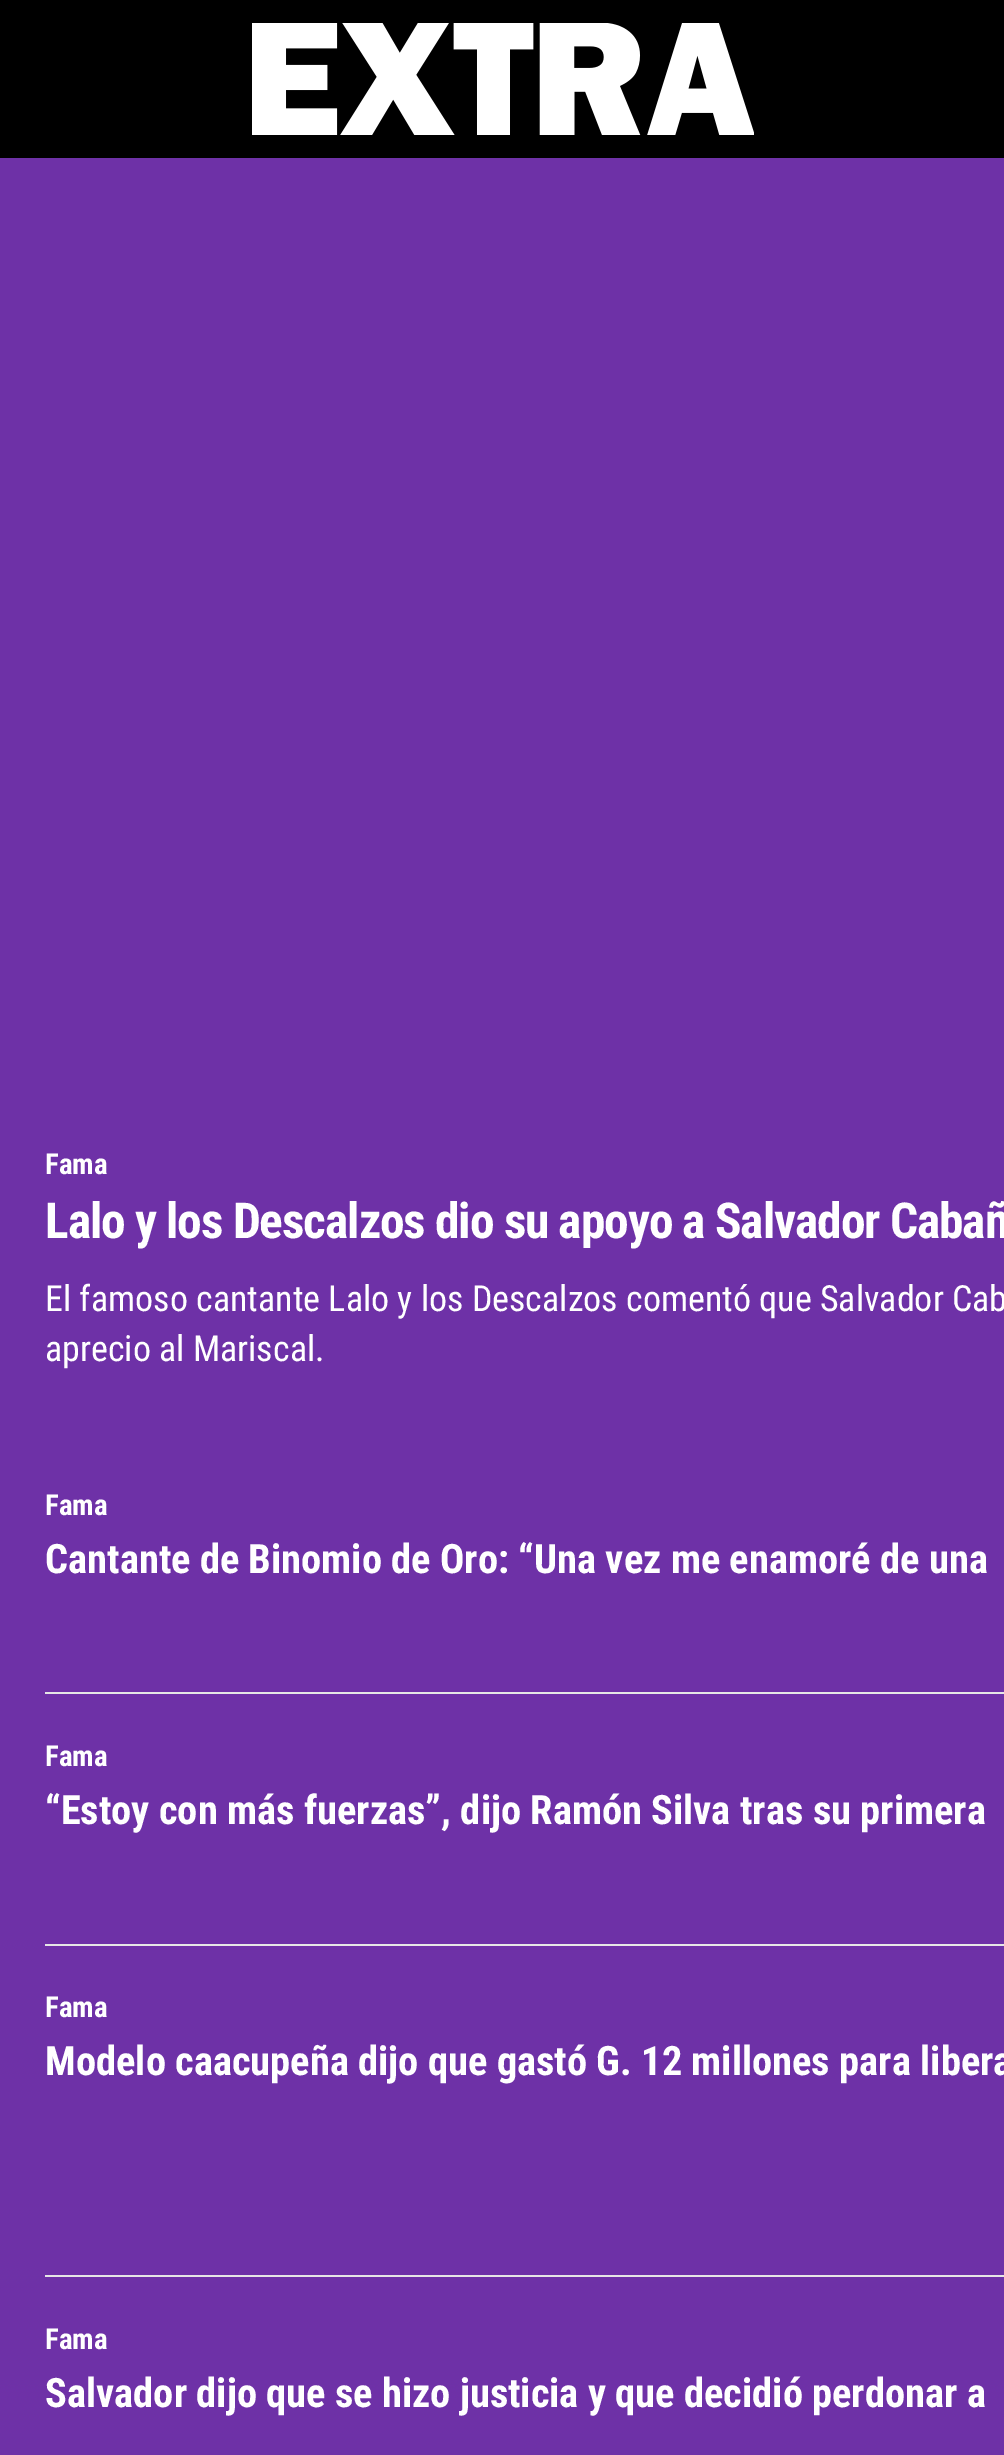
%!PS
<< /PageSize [1004 2455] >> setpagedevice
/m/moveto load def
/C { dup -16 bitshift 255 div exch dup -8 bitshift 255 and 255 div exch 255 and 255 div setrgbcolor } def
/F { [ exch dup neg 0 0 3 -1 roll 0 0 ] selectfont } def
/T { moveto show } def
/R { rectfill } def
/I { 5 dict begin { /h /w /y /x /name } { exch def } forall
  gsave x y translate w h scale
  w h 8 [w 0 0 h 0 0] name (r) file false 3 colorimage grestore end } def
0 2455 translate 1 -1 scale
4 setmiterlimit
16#6E31A7 C
0 0 1004 2455 R
16#000000 C
0 0 1004 158 R
(1.rgb) 252 23 502 112 I
/RobotoCondensed-Bold 29 F
16#FFFFFF C
(Fama) 45 1174 T
/RobotoCondensed-Bold 49.5 F
45 1238 m -1.12 0 (Lalo y los Descalzos dio su apoyo a Salvador Cabañ) ashow
/RobotoCondensed-Regular 36 F
(El famoso cantante Lalo y los Descalzos comentó que Salvador Cab) 45 1311 T
(aprecio al Mariscal.) 45 1361 T
16#E6E6E6 C
45 1692 959 2 R
/RobotoCondensed-Bold 29 F
16#FFFFFF C
(Fama) 45 1515 T
/RobotoCondensed-Bold 40.5 F
(Cantante de Binomio de Oro: “Una vez me enamoré de una) 45 1573 T
16#E6E6E6 C
45 1944 959 2 R
/RobotoCondensed-Bold 29 F
16#FFFFFF C
(Fama) 45 1766 T
/RobotoCondensed-Bold 40.5 F
(“Estoy con más fuerzas”, dijo Ramón Silva tras su primera) 45 1824 T
16#E6E6E6 C
45 2275 959 2 R
/RobotoCondensed-Bold 29 F
16#FFFFFF C
(Fama) 45 2017 T
/RobotoCondensed-Bold 40.5 F
(Modelo caacupeña dijo que gastó G. 12 millones para libera) 45 2075 T
/RobotoCondensed-Bold 29 F
(Fama) 45 2349 T
/RobotoCondensed-Bold 40.5 F
(Salvador dijo que se hizo justicia y que decidió perdonar a) 45 2407 T
showpage
